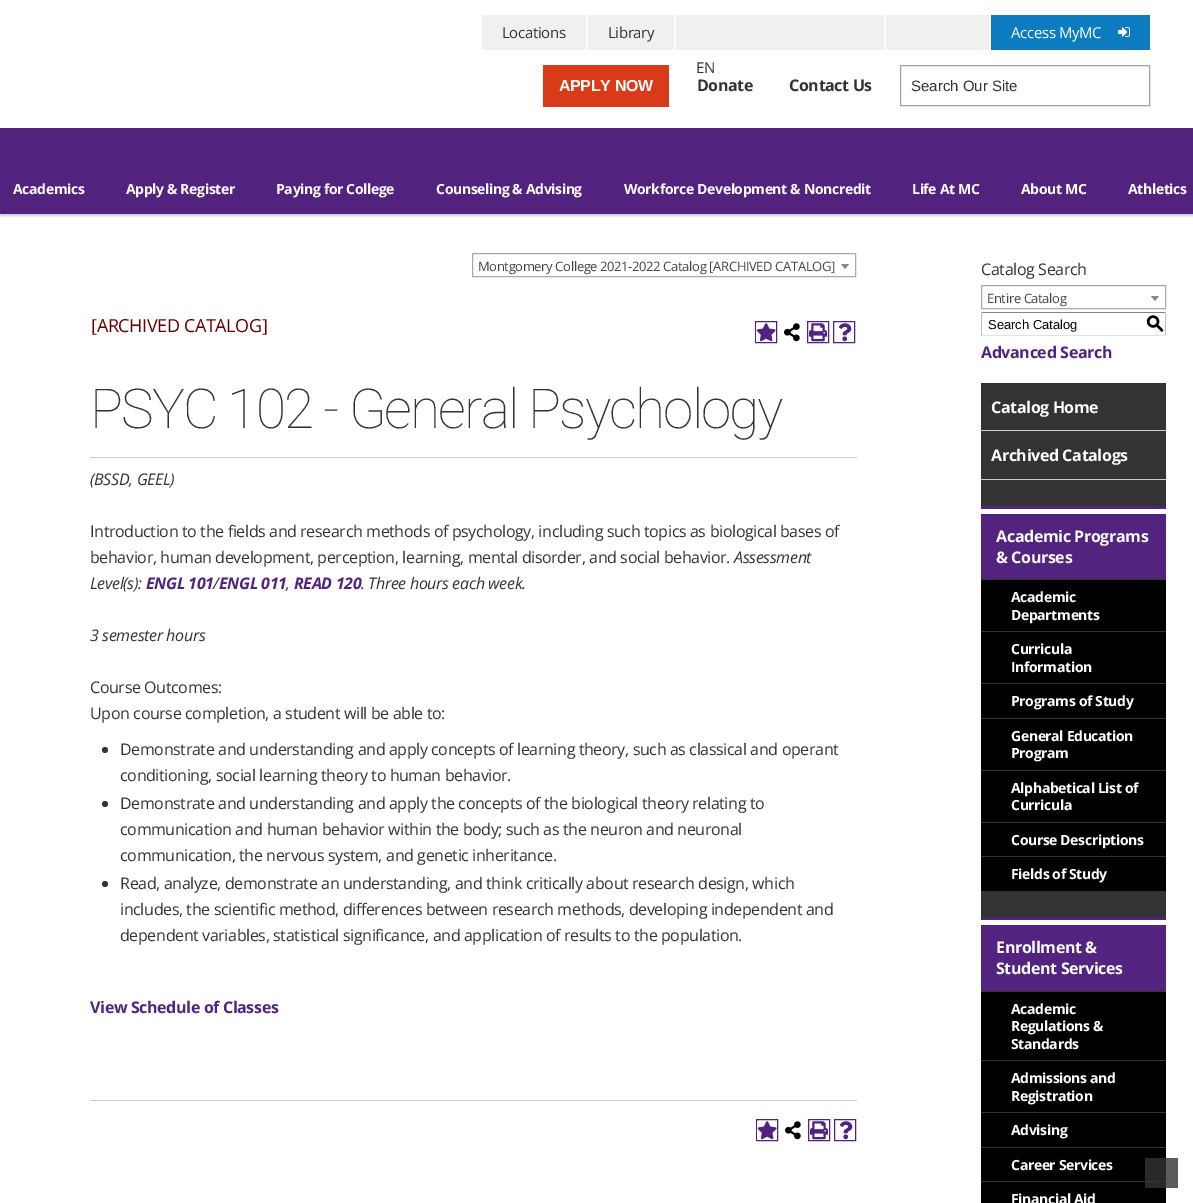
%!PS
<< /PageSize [1193 1203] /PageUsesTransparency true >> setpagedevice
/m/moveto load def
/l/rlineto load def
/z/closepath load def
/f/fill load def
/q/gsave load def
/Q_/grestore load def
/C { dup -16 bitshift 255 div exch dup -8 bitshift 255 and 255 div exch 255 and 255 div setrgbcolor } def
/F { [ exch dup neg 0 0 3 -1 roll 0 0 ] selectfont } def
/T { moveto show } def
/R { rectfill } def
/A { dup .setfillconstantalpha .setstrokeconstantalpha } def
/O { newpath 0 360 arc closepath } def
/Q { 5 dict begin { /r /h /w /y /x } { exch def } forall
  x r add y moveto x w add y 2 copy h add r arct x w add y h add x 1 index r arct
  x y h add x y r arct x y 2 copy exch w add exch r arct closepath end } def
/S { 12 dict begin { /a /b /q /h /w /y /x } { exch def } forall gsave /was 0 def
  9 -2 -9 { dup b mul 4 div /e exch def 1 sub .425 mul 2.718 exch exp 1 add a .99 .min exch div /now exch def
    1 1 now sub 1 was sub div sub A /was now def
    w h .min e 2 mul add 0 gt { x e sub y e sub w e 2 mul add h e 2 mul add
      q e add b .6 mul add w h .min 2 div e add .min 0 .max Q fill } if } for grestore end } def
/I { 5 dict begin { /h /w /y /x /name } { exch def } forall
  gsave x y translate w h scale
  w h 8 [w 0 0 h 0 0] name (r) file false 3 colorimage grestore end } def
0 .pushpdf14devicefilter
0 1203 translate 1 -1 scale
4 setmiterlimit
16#FFFFFF C
0 0 1193 1203 R
16#5C5C5C C
1166 1158 12 30 R
q
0 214 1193 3 rectclip
16#000000 C
0 2 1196 214 0 1 .2 S
Q_
16#F0F0F0 C
482 15 104 35 R
/OpenSans-Regular 15 F
16#333333 C
502 38 m -.37 0 (Locations) ashow
16#F0F0F0 C
588 15 86 35 R
16#333333 C
608 38 m -.37 0 (Library) ashow
16#F0F0F0 C
886 15 103 35 R
16#0C7BC0 C
991 15 159 35 R
16#FFFFFF C
1011 38 m -.37 0 (Access MyMC) ashow
(1.rgb) 1118 27 12 10 I
16#F0F0F0 C
676 15 208 35 R
16#333333 C
696 73 m -.37 0 (EN) ashow
16#D93A17 C
543 65 126 42 R
/LiberationSans-Bold 16 F
16#FFFFFF C
559 91 m -.37 0 (APPLY NOW) ashow
/OpenSans-Bold 16 F
16#333333 C
697 91 m -.37 0 (Donate) ashow
789 91 m -.37 0 (Contact Us) ashow
16#A2A2A2 C
900.5 65.5 249 40 rectstroke
/LiberationSans-Regular 15 F
16#333333 C
(Search Our Site) 911 91 T
16#51237F C
0 128 1193 86 R
/OpenSans-Bold 14 F
16#FFFFFF C
13 194 m -.37 0 (Academics) ashow
126 194 m -.37 0 (Apply & Register) ashow
276 194 m -.37 0 (Paying for College) ashow
436 194 m -.37 0 (Counseling & Advising) ashow
624 194 m -.37 0 (Workforce Development & Noncredit) ashow
912 194 m -.37 0 (Life At MC) ashow
1021 194 m -.37 0 (About MC) ashow
1128 194 m -.37 0 (Athletics) ashow
16#AAAAAA C
472.5 253.5 383 23 rectstroke
/OpenSans-Regular 13 F
16#444444 C
478 271 m -.37 0 (Montgomery College 2021-2022 Catalog [ARCHIVED CATALOG]) ashow
16#888888 C
841 264 m 8 0 l -4 5 l z f
/OpenSans-Regular 18 F
16#660000 C
91 332 m -.37 0 ([ARCHIVED CATALOG]) ashow
16#51237F C
755.5 321.5 21 21 rectstroke
(2.rgb) 756 323 20 19 I
(3.rgb) 784 323 16 19 I
807.5 321.5 21 21 rectstroke
(4.rgb) 809 323 18 19 I
833.5 321.5 21 21 rectstroke
(5.rgb) 839 323 13 19 I
/Roboto-Thin 55 F
16#333333 C
90 428 m -1.95 0 (PSYC 102 - General Psychology) ashow
16#CCCCCC C
90 457 767 1 R
/OpenSans-Italic 16 F
16#333333 C
90 485 m -.37 0 (\(BSSD, GEEL\)) ashow
/OpenSans-Regular 16 F
90 537 m -.37 0 (Introduction to the fields and research methods of psychology, including such topics as biological bases of) ashow
90 563 m -.37 0 (behavior, human development, perception, learning, mental disorder, and social behavior.) ashow
/OpenSans-Italic 16 F
734 563 m -.37 0 (Assessment) ashow
90 589 m -.37 0 (Level\(s\):) ashow
/OpenSans-BoldItalic 16 F
16#51237F C
146 589 m -.37 0 (ENGL 101) ashow
/OpenSans-Italic 16 F
16#333333 C
213 589 m -.37 0 (/) ashow
/OpenSans-BoldItalic 16 F
16#51237F C
219 589 m -.37 0 (ENGL 011) ashow
/OpenSans-Italic 16 F
16#333333 C
286 589 m -.37 0 (,) ashow
/OpenSans-BoldItalic 16 F
16#51237F C
294 589 m -.37 0 (READ 120) ashow
/OpenSans-Italic 16 F
16#333333 C
361 589 m -.37 0 (. Three hours each week.) ashow
90 641 m -.37 0 (3 semester hours) ashow
/OpenSans-Regular 16 F
90 693 m -.37 0 (Course Outcomes:) ashow
90 719 m -.37 0 (Upon course completion, a student will be able to:) ashow
105 750 3 O f
120 755 m -.37 0 (Demonstrate and understanding and apply concepts of learning theory, such as classical and operant) ashow
120 781 m -.37 0 (conditioning, social learning theory to human behavior.) ashow
105 804 3 O f
120 809 m -.37 0 (Demonstrate and understanding and apply the concepts of the biological theory relating to) ashow
120 835 m -.37 0 (communication and human behavior within the body; such as the neuron and neuronal) ashow
120 861 m -.37 0 (communication, the nervous system, and genetic inheritance.) ashow
105 884 3 O f
120 889 m -.37 0 (Read, analyze, demonstrate an understanding, and think critically about research design, which) ashow
120 915 m -.37 0 (includes, the scientific method, differences between research methods, developing independent and) ashow
120 941 m -.37 0 (dependent variables, statistical significance, and application of results to the population.) ashow
/OpenSans-Bold 16 F
16#51237F C
90 1013 m -.37 0 (View Schedule of Classes) ashow
16#CCCCCC C
90 1100 767 1 R
16#51237F C
756.5 1119.5 21 21 rectstroke
(2.rgb) 757 1121 20 19 I
(3.rgb) 785 1121 16 19 I
808.5 1119.5 21 21 rectstroke
(4.rgb) 810 1121 18 19 I
834.5 1119.5 21 21 rectstroke
(5.rgb) 840 1121 13 19 I
/OpenSans-Regular 16 F
16#333333 C
981 275 m -.37 0 (Catalog Search) ashow
16#AAAAAA C
981.5 285.5 184 23 rectstroke
/OpenSans-Regular 13 F
16#444444 C
987 303 m -.37 0 (Entire Catalog) ashow
16#888888 C
1151 296 m 8 0 l -4 5 l z f
16#848484 C
981 312 185 1 R
16#C1C1C1 C
1165 312 1 24 R
16#E1E1E1 C
981 335 185 1 R
16#C1C1C1 C
981 312 1 24 R
/LiberationSans-Regular 13 F
16#000000 C
(Search Catalog) 988 329 T
/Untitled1-Medium 18 F
1146 329 m -.37 0 (S) ashow
/OpenSans-Bold 16 F
16#51237F C
981 358 m -.37 0 (Advanced Search) ashow
16#333333 C
981 383 185 799 R
16#CCCCCC C
981 430 185 1 R
16#FFFFFF C
991 413 m -.37 0 (Catalog Home) ashow
16#CCCCCC C
981 479 185 1 R
16#FFFFFF C
991 461 m -.37 0 (Archived Catalogs) ashow
16#51237F C
981 506 185 3 R
16#52247F C
981 514 185 65 R
16#FFFFFF C
981 509 185 5 R
996 542 m -.37 0 (Academic Programs) ashow
996 563 m -.37 0 (& Courses) ashow
16#000000 C
981 580 185 51 R
/OpenSans-Bold 14 F
16#FFFFFF C
1011 602 m -.37 0 (Academic) ashow
1011 620 m -.37 0 (Departments) ashow
16#000000 C
981 632 185 51 R
16#FFFFFF C
1011 654 m -.37 0 (Curricula) ashow
1011 672 m -.37 0 (Information) ashow
16#000000 C
981 684 185 34 R
16#FFFFFF C
1011 706 m -.37 0 (Programs of Study) ashow
16#000000 C
981 719 185 51 R
16#FFFFFF C
1011 741 m -.37 0 (General Education) ashow
1011 758 m -.37 0 (Program) ashow
16#000000 C
981 771 185 51 R
16#FFFFFF C
1011 793 m -.37 0 (Alphabetical List of) ashow
1011 810 m -.37 0 (Curricula) ashow
16#000000 C
981 823 185 33 R
16#FFFFFF C
1011 845 m -.37 0 (Course Descriptions) ashow
16#000000 C
981 857 185 34 R
16#FFFFFF C
1011 879 m -.37 0 (Fields of Study) ashow
16#51237F C
981 917 185 3 R
16#52247F C
981 925 185 66 R
16#FFFFFF C
981 920 185 5 R
/OpenSans-Bold 16 F
996 953 m -.37 0 (Enrollment &) ashow
996 974 m -.37 0 (Student Services) ashow
16#000000 C
981 992 185 68 R
/OpenSans-Bold 14 F
16#FFFFFF C
1011 1014 m -.37 0 (Academic) ashow
1011 1031 m -.37 0 (Regulations &) ashow
1011 1049 m -.37 0 (Standards) ashow
16#000000 C
981 1061 185 51 R
16#FFFFFF C
1011 1083 m -.37 0 (Admissions and) ashow
1011 1101 m -.37 0 (Registration) ashow
16#000000 C
981 1113 185 34 R
16#FFFFFF C
1011 1135 m -.37 0 (Advising) ashow
16#000000 C
981 1148 185 33 R
16#292929 C
1145 1158 21 23 R
16#FFFFFF C
1011 1170 m -.37 0 (Career Services) ashow
16#000000 C
981 1182 185 21 R
16#292929 C
1145 1182 21 6 R
16#FFFFFF C
1011 1204 m -.37 0 (Financial Aid) ashow
.poppdf14devicefilter showpage
